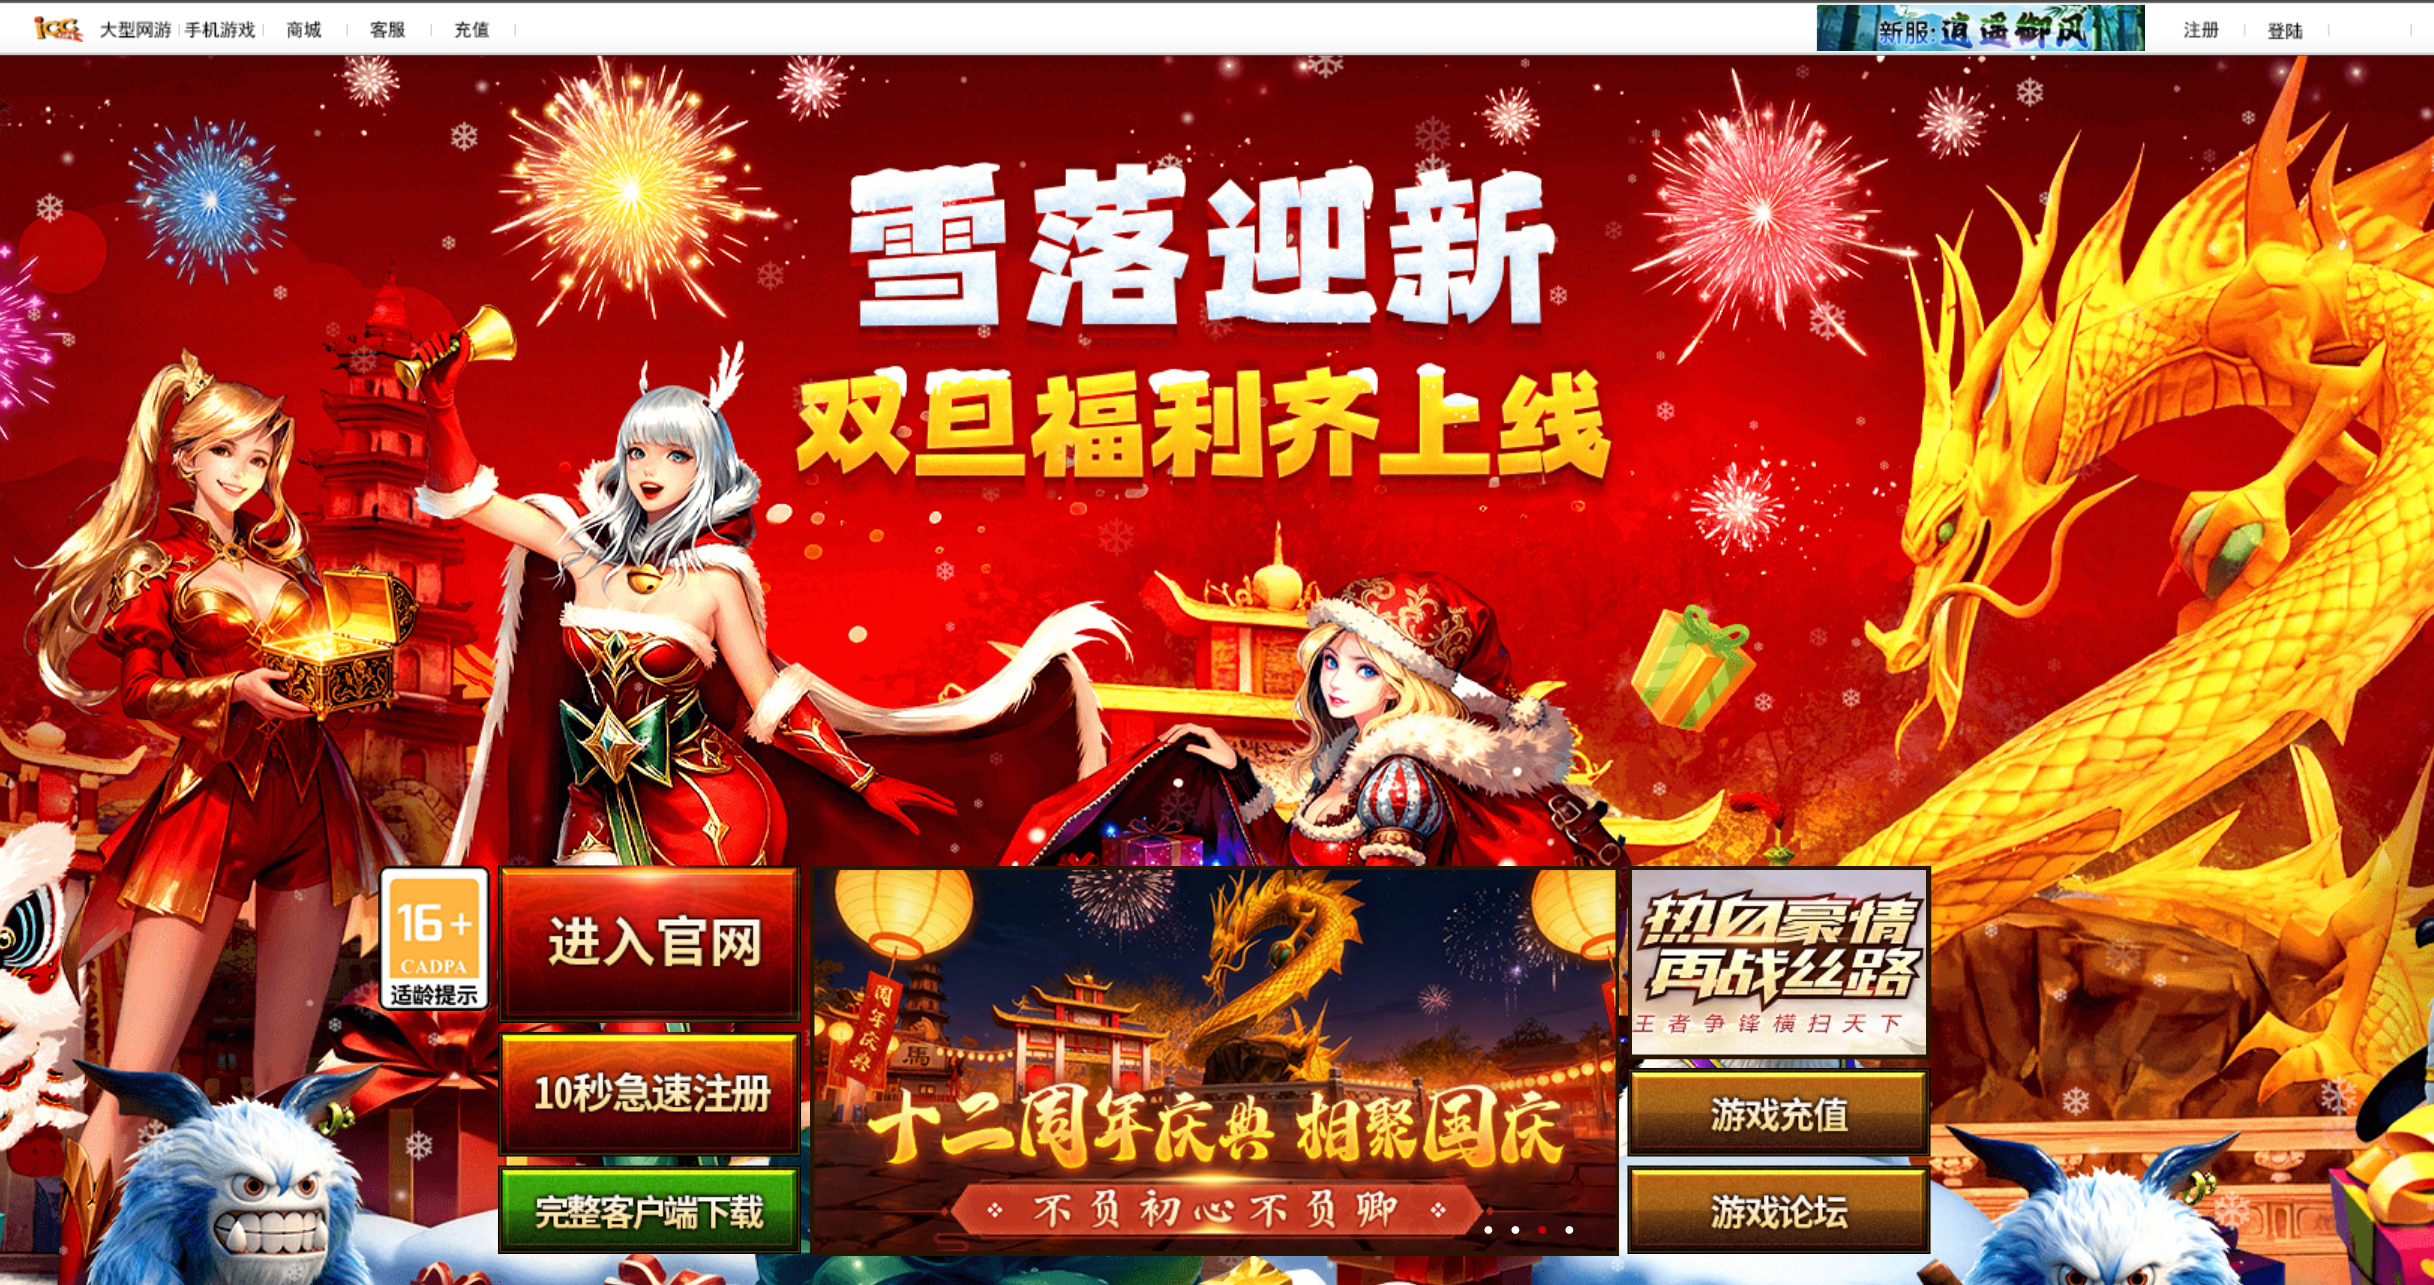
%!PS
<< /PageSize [2434 1285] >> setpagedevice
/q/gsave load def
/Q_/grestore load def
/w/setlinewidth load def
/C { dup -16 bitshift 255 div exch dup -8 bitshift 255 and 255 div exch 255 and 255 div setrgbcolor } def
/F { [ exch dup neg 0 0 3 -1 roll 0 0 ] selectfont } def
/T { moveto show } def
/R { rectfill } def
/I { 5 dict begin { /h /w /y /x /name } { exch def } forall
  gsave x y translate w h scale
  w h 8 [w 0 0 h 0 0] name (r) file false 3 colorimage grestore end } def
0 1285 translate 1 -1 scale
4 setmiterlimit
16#000000 C
0 0 2434 1285 R
(14.rgb) 0 55 2434 1230 I
(1.rgb) 0 0 2434 56 I
(2.rgb) 34 16 51 26 I
(3.rgb) 178 24 2 13 I
(4.rgb) 100 20 73 20 I
(3.rgb) 262 24 2 13 I
(5.rgb) 184 20 72 20 I
(3.rgb) 346 24 2 13 I
(6.rgb) 286 20 36 20 I
(7.rgb) 430 24 2 13 I
(8.rgb) 370 20 36 20 I
(3.rgb) 514 24 2 13 I
(9.rgb) 454 20 36 19 I
(10.rgb) 1816 4 329 47 I
(11.rgb) 2243 24 3 13 I
(12.rgb) 2183 20 37 19 I
(11.rgb) 2327 24 3 13 I
(13.rgb) 2267 22 37 18 I
(3.rgb) 2410 24 2 13 I
(15.rgb) 378 865 113 146 I
(16.rgb) 498 865 303 158 I
(17.rgb) 498 1032 303 125 I
(18.rgb) 498 1165 303 89 I
q
810 866 809 390 rectclip
16#2A1500 C
5 w
812.5 868.5 805 385 rectstroke
Q_
(19.rgb) 814 870 802 381 I
/LiberationSerif-Bold 18 F
16#FFFFFF C
(●) 1483 1235 T
(●) 1510 1235 T
16#CC0000 C
(●) 1537 1235 T
16#FFFFFF C
(●) 1564 1235 T
16#2A1500 C
5 w
1630.5 868.5 298 188 rectstroke
(20.rgb) 1632 870 294 185 I
(21.rgb) 1627 1068 304 89 I
(22.rgb) 1627 1165 304 89 I
showpage
